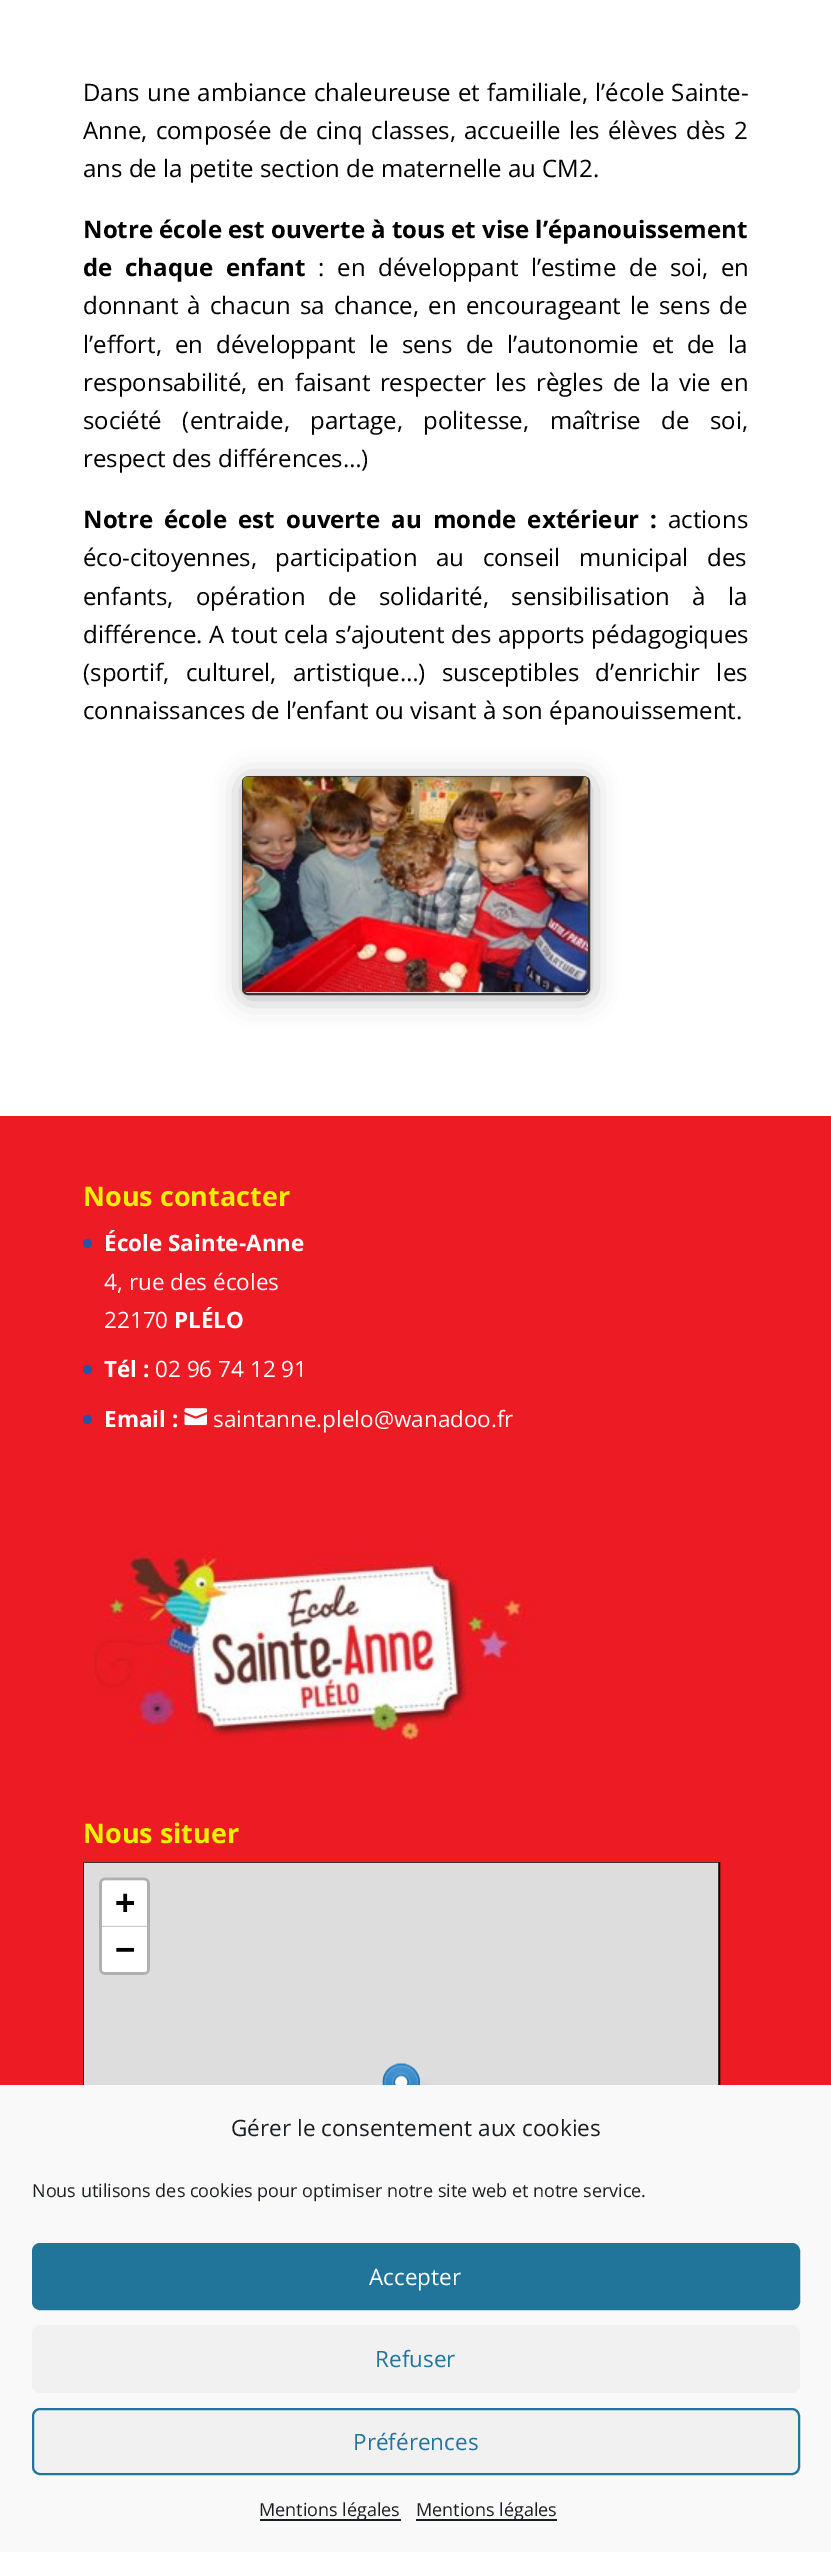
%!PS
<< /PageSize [831 2552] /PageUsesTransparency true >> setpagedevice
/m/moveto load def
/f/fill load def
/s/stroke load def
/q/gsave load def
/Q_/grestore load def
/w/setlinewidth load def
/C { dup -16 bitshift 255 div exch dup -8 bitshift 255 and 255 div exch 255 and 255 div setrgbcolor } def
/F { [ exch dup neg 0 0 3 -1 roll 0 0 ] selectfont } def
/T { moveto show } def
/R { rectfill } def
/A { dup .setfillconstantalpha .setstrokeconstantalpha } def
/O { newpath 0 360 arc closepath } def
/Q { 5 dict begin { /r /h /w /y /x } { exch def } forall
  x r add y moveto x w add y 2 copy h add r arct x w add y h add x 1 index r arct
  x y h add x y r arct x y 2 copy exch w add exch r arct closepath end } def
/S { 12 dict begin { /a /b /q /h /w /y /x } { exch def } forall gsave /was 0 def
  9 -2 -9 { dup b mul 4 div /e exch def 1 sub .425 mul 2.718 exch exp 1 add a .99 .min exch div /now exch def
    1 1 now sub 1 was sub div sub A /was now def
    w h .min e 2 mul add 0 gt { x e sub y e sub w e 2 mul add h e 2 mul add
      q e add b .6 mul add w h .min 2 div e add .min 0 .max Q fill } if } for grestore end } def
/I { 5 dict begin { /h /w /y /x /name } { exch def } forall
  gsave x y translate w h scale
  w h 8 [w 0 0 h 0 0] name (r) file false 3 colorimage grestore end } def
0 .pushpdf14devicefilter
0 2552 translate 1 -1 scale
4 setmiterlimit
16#ED1B24 C
0 0 831 2552 R
16#FFFFFF C
0 0 831 1116 R
/OpenSans-Regular 24 F
16#000000 C
83 101 m 1 0 32 (Dans une ambiance chaleureuse et familiale, l’école Sainte-) widthshow
83 139 m 2 0 32 (Anne, composée de cinq classes, accueille les élèves dès 2) widthshow
(ans de la petite section de maternelle au CM2.) 83 177 T
/OpenSans-Bold 24 F
(Notre école est ouverte à tous et vise l’épanouissement) 83 238 T
83 276 m 6.5 0 32 (de chaque enfant) widthshow
/OpenSans-Regular 24 F
318 276 m 6.5 0 32 (: en développant l’estime de soi, en) widthshow
83 314 m 3 0 32 (donnant à chacun sa chance, en encourageant le sens de) widthshow
83 353 m 6.75 0 32 (l’effort, en développant le sens de l’autonomie et de la) widthshow
83 391 m 3.25 0 32 (responsabilité, en faisant respecter les règles de la vie en) widthshow
83 429 m 14.25 0 32 (société \(entraide, partage, politesse, maîtrise de soi,) widthshow
(respect des différences…\)) 83 467 T
/OpenSans-Bold 24 F
83 528 m 5 0 32 (Notre école est ouverte au monde extérieur :) widthshow
/OpenSans-Regular 24 F
(actions) 668 528 T
83 566 m 12.5 0 32 (éco-citoyennes, participation au conseil municipal des) widthshow
83 605 m 16.25 0 32 (enfants, opération de solidarité, sensibilisation à la) widthshow
83 643 m .5 0 32 (différence. A tout cela s’ajoutent des apports pédagogiques) widthshow
83 681 m 10 0 32 (\(sportif, culturel, artistique…\) susceptibles d’enrichir les) widthshow
(connaissances de l’enfant ou visant à son épanouissement.) 83 719 T
242 779 348 219 6 13.5 .3 S
16#333333 C
2 w
243 777 346 217 5 Q s
(1.rgb) 243 776 345 217 I
/OpenSans-Bold 27 F
16#EDF000 C
(Nous contacter) 83 1206 T
16#2057A4 C
87.5 1243.5 4.5 O f
/OpenSans-Bold 22.5 F
16#FFFFFF C
(École Sainte-Anne) 104 1251 T
/OpenSans-Regular 22.5 F
(4, rue des écoles) 104 1290 T
(22170) 104 1328 T
/OpenSans-Bold 22.5 F
(PLÉLO) 174 1328 T
16#2057A4 C
87.5 1369.5 4.5 O f
16#FFFFFF C
(Tél :) 104 1377 T
/OpenSans-Regular 22.5 F
(02 96 74 12 91) 155 1377 T
16#2057A4 C
87.5 1419.5 4.5 O f
/OpenSans-Bold 22.5 F
16#FFFFFF C
(Email :) 104 1427 T
(2.rgb) 184 1408 23 18 I
/OpenSans-Regular 22.5 F
(saintanne.plelo@wanadoo.fr) 213 1427 T
(3.rgb) 89 1550 443 194 I
/OpenSans-Bold 27 F
16#EDF000 C
(Nous situer) 83 1843 T
16#000000 C
84 1863 635 523 rectstroke
(4.rgb) 84 1862 635 223 I
16#F9F9F9 C
0 2085 831 467 R
/OpenSans-Regular 22.5 F
16#191E23 C
(Gérer le consentement aux cookies) 231 2136 T
/OpenSans-Regular 18 F
(Nous utilisons des cookies pour optimiser notre site web et notre service.) 32 2197 T
16#21759B C
33 2244 766 65 7 Q q f Q_
s
/OpenSans-Regular 22.5 F
16#FFFFFF C
(Accepter) 369 2285 T
16#F1F1F1 C
32 2325 768 68 8 Q f
16#21759B C
(Refuser) 375 2367 T
16#F1F1F1 C
33 2409 766 65 7 Q q f Q_
16#21759B C
s
(Préférences) 353 2450 T
16#191E23 C
260 2519 141 2 R
/OpenSans-Regular 18 F
(Mentions légales) 259 2516 T
416 2519 141 2 R
(Mentions légales) 416 2516 T
.poppdf14devicefilter showpage
